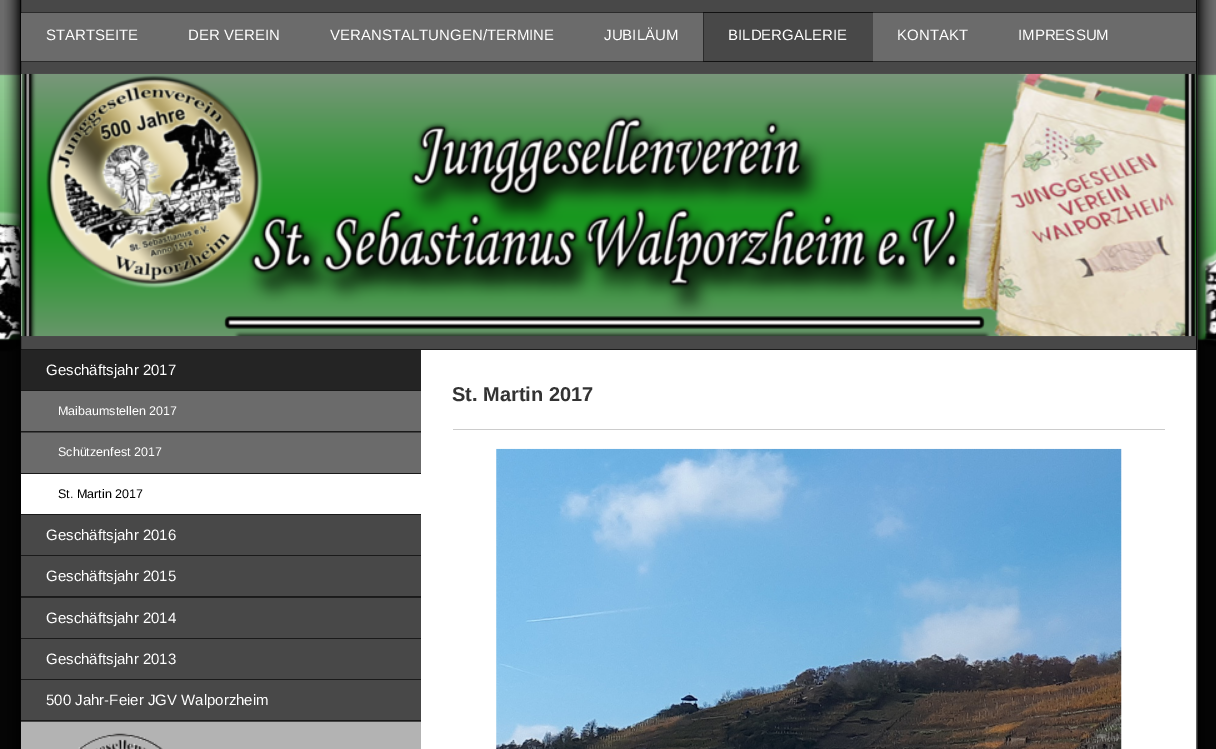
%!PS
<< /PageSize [1216 749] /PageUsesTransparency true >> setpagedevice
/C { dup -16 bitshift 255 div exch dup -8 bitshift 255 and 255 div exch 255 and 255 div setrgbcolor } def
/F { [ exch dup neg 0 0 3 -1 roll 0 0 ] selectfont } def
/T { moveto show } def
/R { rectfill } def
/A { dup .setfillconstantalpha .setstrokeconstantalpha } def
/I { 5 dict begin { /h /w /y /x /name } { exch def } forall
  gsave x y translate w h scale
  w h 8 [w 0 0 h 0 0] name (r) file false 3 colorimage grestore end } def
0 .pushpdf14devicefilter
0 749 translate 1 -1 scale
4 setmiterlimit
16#FFFFFF C
0 0 1216 749 R
(1.rgb) 0 0 1216 749 I
16#1A1A1A C
1196 0 1 350 R
16#484848 C
21 0 1175 13 R
21 61 1175 13 R
21 336 1175 13 R
16#1A1A1A C
21 349 1175 1 R
(2.rgb) 4 0 18 749 I
16#FFFFFF C
421 350 776 399 R
(3.rgb) 1196 0 18 749 I
16#B3B3B3 C
21 13 1175 48 R
0.4 A
16#000000 C
21 12 1175 50 R
/LiberationSans-Regular 15 F
1 A
16#FFFFFF C
(STARTSEITE) 46 40 T
(DER VEREIN) 188 40 T
(VERANSTALTUNGEN/TERMINE) 330 40 T
(JUBILÄUM) 604 40 T
16#B3B3B3 C
704 13 169 48 R
0.6 A
16#000000 C
703 12 170 50 R
1 A
16#FFFFFF C
(BILDERGALERIE) 728 40 T
(KONTAKT) 897 40 T
(IMPRESSUM) 1018 40 T
16#EEEEEE C
21 74 1 262 R
(4.rgb) 21 73 1176 264 I
16#B3B3B3 C
21 391 400 247 R
16#242424 C
21 350 400 40 R
16#1A1A1A C
21 390 400 1 R
16#FFFFFF C
(Geschäftsjahr 2017) 46 375 T
0.4 A
16#000000 C
21 391 400 42 R
1 A
16#1A1A1A C
21 431 400 1 R
/LiberationSans-Regular 12.5 F
16#FFFFFF C
(Maibaumstellen 2017) 58 415 T
0.4 A
16#000000 C
21 432 400 41 R
1 A
16#1A1A1A C
21 473 400 1 R
16#FFFFFF C
(Schützenfest 2017) 58 456 T
21 474 400 40 R
16#1A1A1A C
21 514 400 1 R
16#000000 C
(St. Martin 2017) 58 498 T
16#484848 C
21 515 400 40 R
16#1A1A1A C
21 555 400 1 R
/LiberationSans-Regular 15 F
16#FFFFFF C
(Geschäftsjahr 2016) 46 540 T
0.6 A
16#000000 C
21 556 400 42 R
1 A
16#1A1A1A C
21 596 400 1 R
16#FFFFFF C
(Geschäftsjahr 2015) 46 581 T
0.6 A
16#000000 C
21 597 400 41 R
1 A
16#1A1A1A C
21 638 400 1 R
16#FFFFFF C
(Geschäftsjahr 2014) 46 623 T
16#484848 C
21 639 400 40 R
16#1A1A1A C
21 679 400 1 R
16#FFFFFF C
(Geschäftsjahr 2013) 46 664 T
16#484848 C
21 680 400 42 R
16#1A1A1A C
21 720 400 1 R
16#FFFFFF C
(500 Jahr-Feier JGV Walporzheim) 46 705 T
16#B3B3B3 C
21 722 400 27 R
(5.rgb) 78 733 85 16 I
/LiberationSans-Bold 20 F
16#333333 C
(St. Martin 2017) 452 401 T
16#CCCCCC C
453 429 712 1 R
(6.rgb) 496 448 626 301 I
.poppdf14devicefilter showpage
